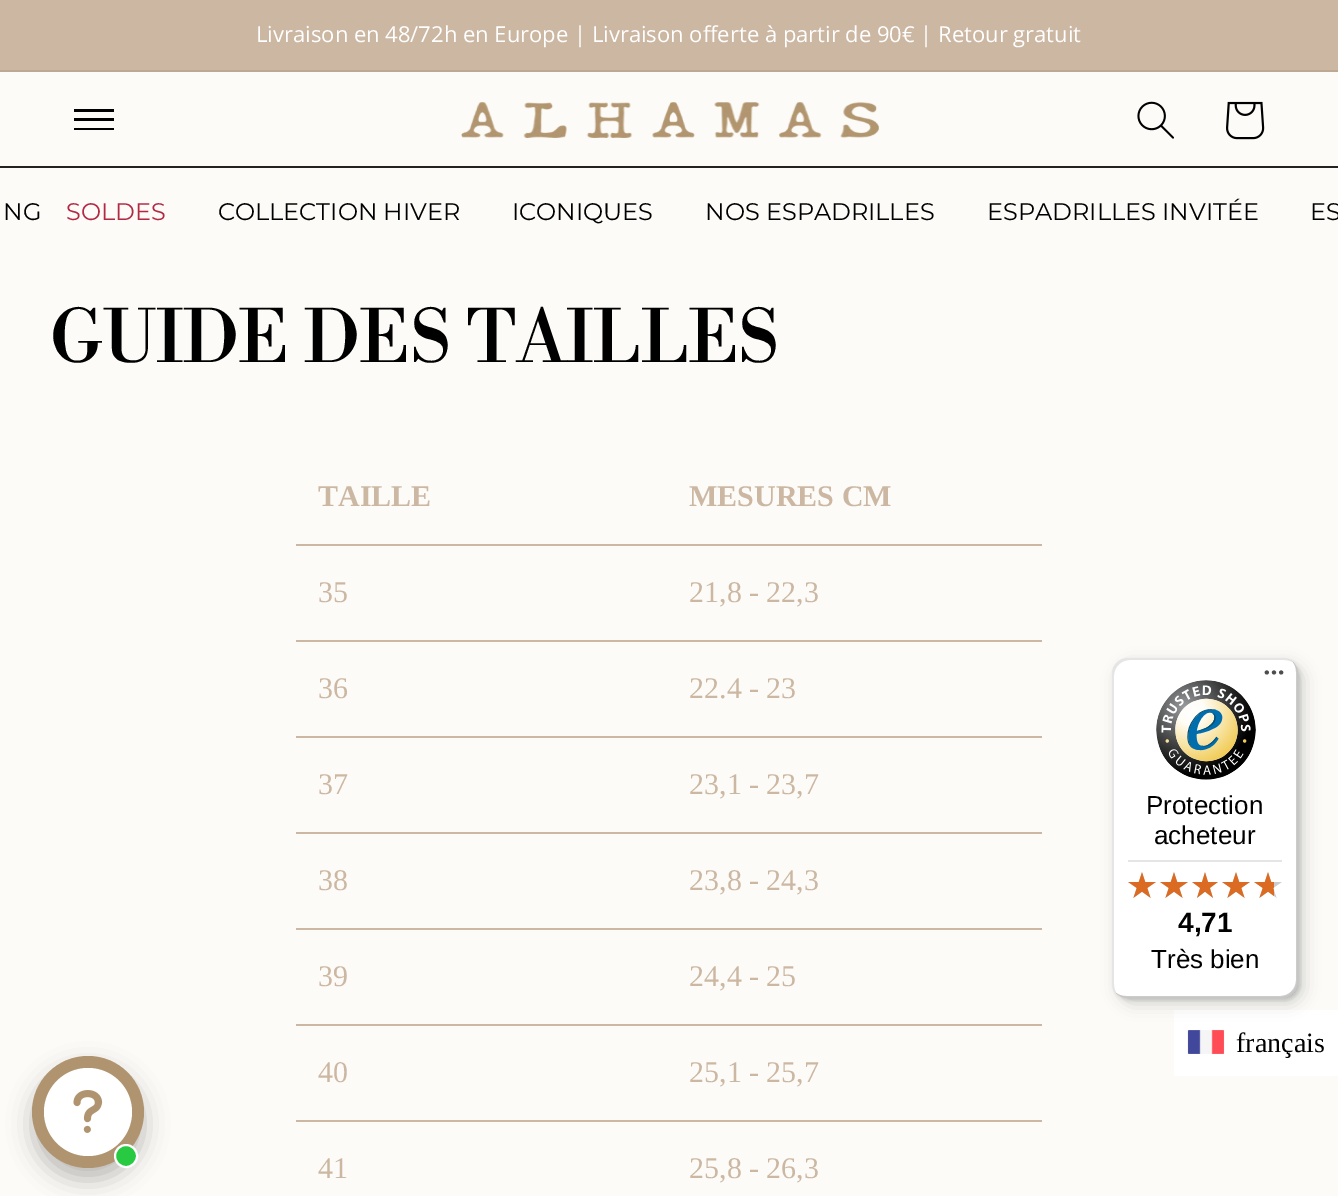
%!PS
<< /PageSize [1338 1196] /PageUsesTransparency true >> setpagedevice
/m/moveto load def
/l/rlineto load def
/c/rcurveto load def
/z/closepath load def
/f/fill load def
/s/stroke load def
/q/gsave load def
/Q_/grestore load def
/w/setlinewidth load def
/C { dup -16 bitshift 255 div exch dup -8 bitshift 255 and 255 div exch 255 and 255 div setrgbcolor } def
/F { [ exch dup neg 0 0 3 -1 roll 0 0 ] selectfont } def
/T { moveto show } def
/R { rectfill } def
/A { dup .setfillconstantalpha .setstrokeconstantalpha } def
/O { newpath 0 360 arc closepath } def
/Q { 5 dict begin { /r /h /w /y /x } { exch def } forall
  x r add y moveto x w add y 2 copy h add r arct x w add y h add x 1 index r arct
  x y h add x y r arct x y 2 copy exch w add exch r arct closepath end } def
/S { 12 dict begin { /a /b /q /h /w /y /x } { exch def } forall gsave /was 0 def
  9 -2 -9 { dup b mul 4 div /e exch def 1 sub .425 mul 2.718 exch exp 1 add a .99 .min exch div /now exch def
    1 1 now sub 1 was sub div sub A /was now def
    w h .min e 2 mul add 0 gt { x e sub y e sub w e 2 mul add h e 2 mul add
      q e add b .6 mul add w h .min 2 div e add .min 0 .max Q fill } if } for grestore end } def
/I { 5 dict begin { /h /w /y /x /name } { exch def } forall
  gsave x y translate w h scale
  w h 8 [w 0 0 h 0 0] name (r) file false 3 colorimage grestore end } def
0 .pushpdf14devicefilter
0 1196 translate 1 -1 scale
4 setmiterlimit
16#FCFBF8 C
0 0 1338 1196 R
16#CBB7A2 C
0 0 1338 70 R
16#BBA895 C
0 70 1338 2 R
/OpenSans-Regular 22 F
16#FFFFFF C
(Livraison en 48/72h en Europe | Livraison offerte à partir de 90€ | Retour gratuit) 256 42 T
16#222222 C
0 166 1338 2 R
16#000000 C
114 112 m -40 0 l 0 -3 l 40 0 l z 114 121 m -40 0 l 0 -3 l 40 0 l z 74 130 m 40 0 l 0 -2 l -40 0 l z eofill
(1.rgb) 461 102 419 36 I
(2.rgb) 1137 101 37 38 I
(3.rgb) 1226 101 39 39 I
/Montserrat-Regular 24 F
(NG) 3 220 T
16#B32843 C
(SOLDES) 66 220 T
16#000000 C
(COLLECTION HIVER) 218 220 T
(ICONIQUES) 512 220 T
(NOS ESPADRILLES) 705 220 T
(ESPADRILLES INVITÉE) 987 220 T
(ES) 1310 220 T
/LibreBodoni-Regular 72 F
(GUIDE DES TAILLES) 50 362 T
/LiberationSerif-Bold 30 F
16#CBB7A2 C
(TAILLE) 318 506 T
296 544 746 2 R
(MESURES CM) 689 506 T
/LiberationSerif-Regular 30 F
(35) 318 602 T
296 640 746 2 R
(21,8 - 22,3) 689 602 T
(36) 318 698 T
296 736 746 2 R
(22.4 - 23) 689 698 T
(37) 318 794 T
296 832 746 2 R
(23,1 - 23,7) 689 794 T
(38) 318 890 T
296 928 746 2 R
(23,8 - 24,3) 689 890 T
(39) 318 986 T
296 1024 746 2 R
(24,4 - 25) 689 986 T
(40) 318 1082 T
296 1120 746 2 R
(25,1 - 25,7) 689 1082 T
(41) 318 1178 T
(25,8 - 26,3) 689 1178 T
16#FFFFFF C
1174 1010 164 66 R
16#000000 C
1118 664 186 340 16 8 .15 S
1114 660 186 340 16 2 .15 S
16#FFFFFF C
1112 658 186 340 16 Q f
0.1 A
16#000000 C
1130 660 m 154 0 l 4 0 7 1 10 3 c -3 -3 -7 -5 -12 -5 c -154 0 l -9 0 -16 7 -16 16 c 0 308 l 0 5 2 9 5 12 c -2 -3 -3 -6 -3 -10 c 0 -308 l 0 -9 7 -16 16 -16 c z f
0.2 A
1116 993 m 3 3 7 5 12 5 c 154 0 l 9 0 16 -7 16 -16 c 0 -308 l 0 -5 -2 -9 -5 -12 c 2 3 3 6 3 10 c 0 308 l 0 9 -7 16 -16 16 c -154 0 l -4 0 -7 -1 -10 -3 c z f
16#323232 C
1117 993 m 3 3 7 5 11 5 c 154 0 l 9 0 16 -7 16 -16 c 0 -308 l 0 -4 -2 -8 -5 -11 c 3 3 4 6 4 10 c 0 308 l 0 9 -7 16 -16 16 c -154 0 l -4 0 -7 -1 -10 -4 c z f
0.3 A
16#FFFFFF C
1117 993 m 3 3 7 5 11 5 c 154 0 l 9 0 16 -7 16 -16 c 0 -308 l 0 -4 -2 -8 -5 -11 c 3 3 4 6 4 10 c 0 308 l 0 9 -7 16 -16 16 c -154 0 l -4 0 -7 -1 -10 -4 c z f
1 A
(4.rgb) 1264 670 20 5 I
(5.rgb) 1156 680 100 100 I
/LiberationSans-Regular 26 F
16#000000 C
(Protection) 1146 814 T
(acheteur) 1154 844 T
16#E5E5E5 C
1128 860 154 2 R
(6.rgb) 1128 872 28 26 I
(6.rgb) 1160 872 28 26 I
(7.rgb) 1192 872 26 26 I
(6.rgb) 1222 872 28 26 I
(6.rgb) 1254 872 28 26 I
(8.rgb) 1128 872 28 26 I
(8.rgb) 1160 872 28 26 I
(9.rgb) 1192 872 26 26 I
(8.rgb) 1222 872 28 26 I
(10.rgb) 1254 872 20 26 I
/LiberationSans-Bold 28 F
16#000000 C
(4,71) 1178 932 T
/LiberationSans-Regular 26 F
(Très bien) 1151 968 T
32 1068 112 112 56 12 .25 S
16#B0946F C
88 1112 56 O f
16#FFFFFF C
88 1112 44 O f
(11.rgb) 73 1090 30 43 I
16#27CA40 C
126 1156 11 O q f Q_
16#FFFFFF C
2 w
s
(12.rgb) 1187 1030 38 24 I
/LiberationSerif-Regular 28 F
16#000000 C
(français) 1236 1052 T
.poppdf14devicefilter showpage
